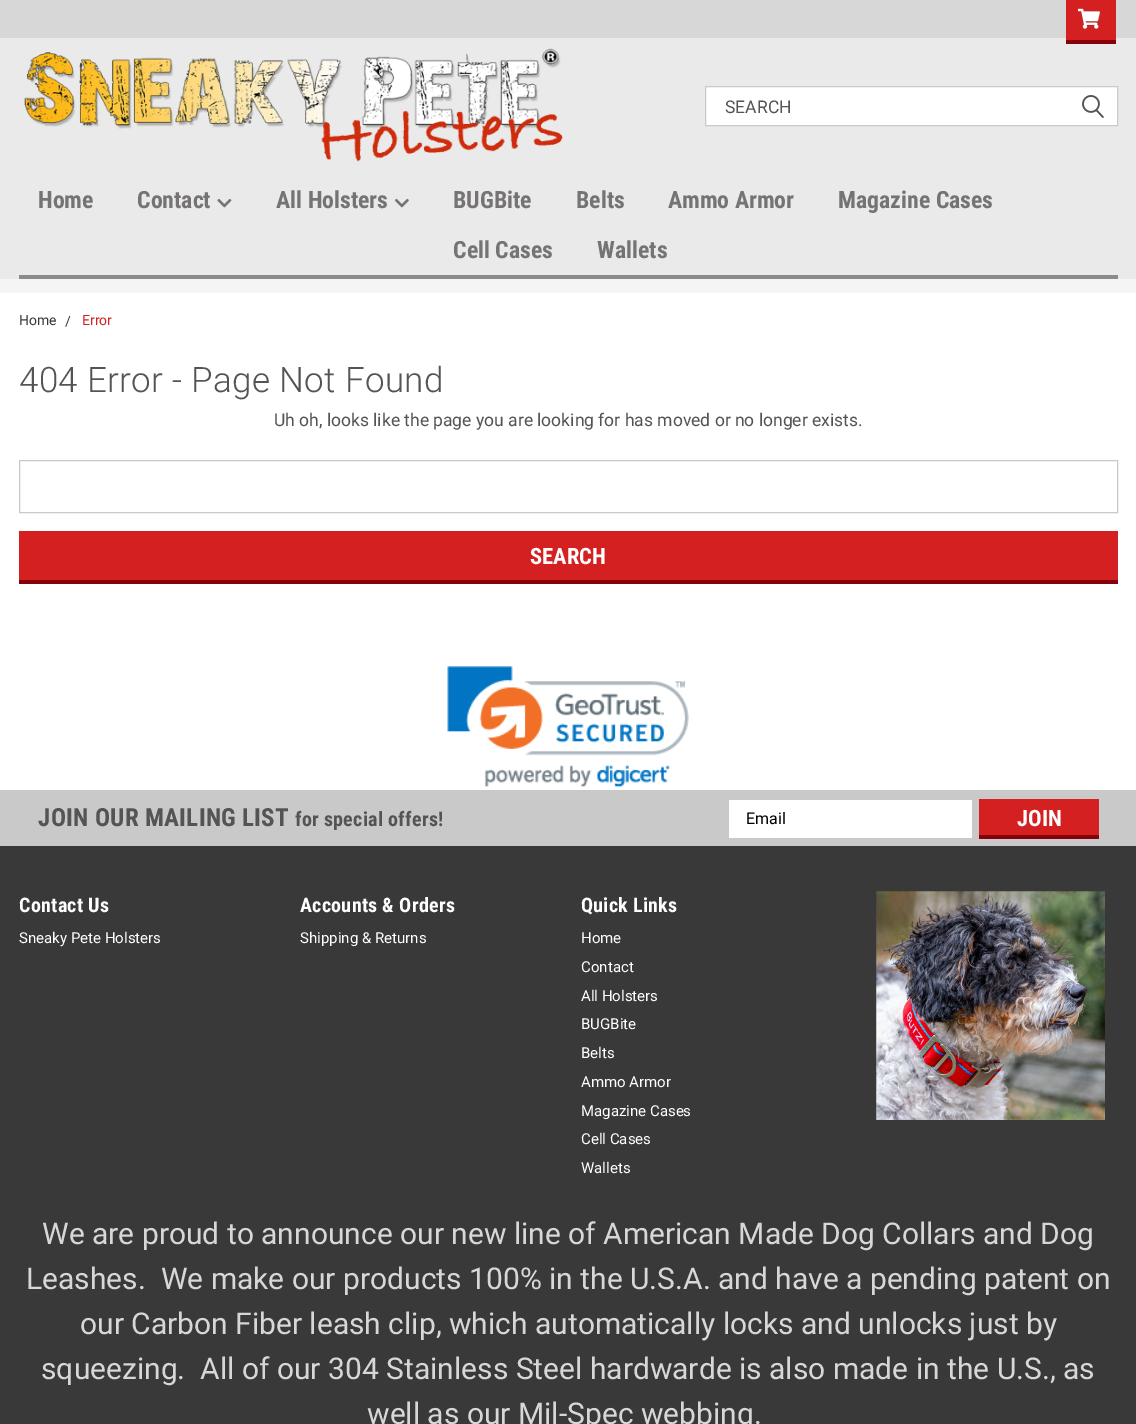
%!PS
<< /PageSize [1136 1424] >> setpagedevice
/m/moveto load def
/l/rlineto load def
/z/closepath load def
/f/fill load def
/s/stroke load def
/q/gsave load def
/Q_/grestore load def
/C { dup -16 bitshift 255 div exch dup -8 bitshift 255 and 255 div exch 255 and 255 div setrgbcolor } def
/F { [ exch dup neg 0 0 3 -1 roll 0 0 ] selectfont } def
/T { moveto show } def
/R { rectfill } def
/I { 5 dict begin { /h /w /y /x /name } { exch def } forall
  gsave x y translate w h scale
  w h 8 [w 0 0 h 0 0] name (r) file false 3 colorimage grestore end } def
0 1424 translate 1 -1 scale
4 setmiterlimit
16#FFFFFF C
0 0 1136 1424 R
16#EAEAEA C
0 38 1136 241 R
16#D7D7D7 C
0 0 1136 38 R
16#D42020 C
1066 0 50 40 R
16#860109 C
1066 40 50 4 R
(1.rgb) 1078 8 22 21 I
(2.rgb) 24 48 539 114 I
16#FFFFFF C
705.5 86.5 m 412 0 l 0 39 l -412 0 l z q f Q_
16#CAC9C9 C
s
/Roboto-Regular 17.5 F
16#545454 C
(SEARCH) 725 113 T
(3.rgb) 1082 95 22 23 I
16#8B8B8B C
19 275 1099 4 R
/RobotoCondensed-Bold 23.75 F
16#757373 C
(Home) 38 208 T
(Contact) 137 208 T
(4.rgb) 217 198 15 10 I
(All Holsters) 276 208 T
(5.rgb) 394 198 15 10 I
(BUGBite) 453 208 T
(Belts) 576 208 T
(Ammo Armor) 668 208 T
(Magazine Cases) 838 208 T
(Cell Cases) 453 258 T
(Wallets) 597 258 T
16#F5F5F5 C
0 279 1136 14 R
/Roboto-Regular 14 F
16#393939 C
(Home) 19 325 T
(/) 65 326 T
16#D42020 C
(Error) 82 325 T
/Roboto-Light 35 F
16#545454 C
19 392 m .3 0 (404 Error - Page Not Found) ashow
/Roboto-Regular 17.5 F
(Uh oh, looks like the page you are looking for has moved or no longer exists.) 274 426 T
16#CAC9C9 C
19.5 460.5 1098 52 rectstroke
16#D42020 C
19 531 1099 49 R
16#860109 C
19 580 1099 4 R
/RobotoCondensed-Bold 22.5 F
16#FFFFFF C
(SEARCH) 530 564 T
(6.rgb) 447 666 242 121 I
16#393939 C
0 846 1136 578 R
16#CAC9C9 C
0 790 1136 56 R
/RobotoCondensed-Bold 25 F
16#545454 C
38 826 m .3 0 (JOIN OUR MAILING LIST) ashow
/RobotoCondensed-Bold 20 F
295 826 m .3 0 (for special offers!) ashow
16#FFFFFF C
729 800 243 38 R
/Roboto-Regular 16 F
16#000000 C
(Email) 746 824 T
16#D42020 C
979 799 120 36 R
16#860109 C
979 835 120 4 R
/RobotoCondensed-Bold 22.5 F
16#FFFFFF C
(JOIN) 1017 826 T
/RobotoCondensed-Bold 20 F
19 912 m .3 0 (Contact Us) ashow
/Roboto-Regular 15 F
(Sneaky Pete Holsters) 19 943 T
/RobotoCondensed-Bold 20 F
300 912 m .3 0 (Accounts & Orders) ashow
/Roboto-Regular 15 F
(Shipping & Returns) 300 943 T
/RobotoCondensed-Bold 20 F
581 912 m .3 0 (Quick Links) ashow
/Roboto-Regular 15 F
(Home) 581 943 T
(Contact) 581 972 T
(All Holsters) 581 1001 T
(BUGBite) 581 1029 T
(Belts) 581 1058 T
(Ammo Armor) 581 1087 T
(Magazine Cases) 581 1116 T
(Cell Cases) 581 1144 T
(Wallets) 581 1173 T
(7.rgb) 876 891 229 229 I
/Roboto-Regular 30 F
16#D7D7D7 C
(We are proud to announce our new line of American Made Dog Collars and Dog) 42 1244 T
(Leashes.  We make our products 100% in the U.S.A. and have a pending patent on) 26 1289 T
(our Carbon Fiber leash clip, which automatically locks and unlocks just by) 80 1334 T
(squeezing.  All of our 304 Stainless Steel hardwarde is also made in the U.S., as) 41 1379 T
(well as our Mil-Spec webbing.) 367 1424 T
showpage
